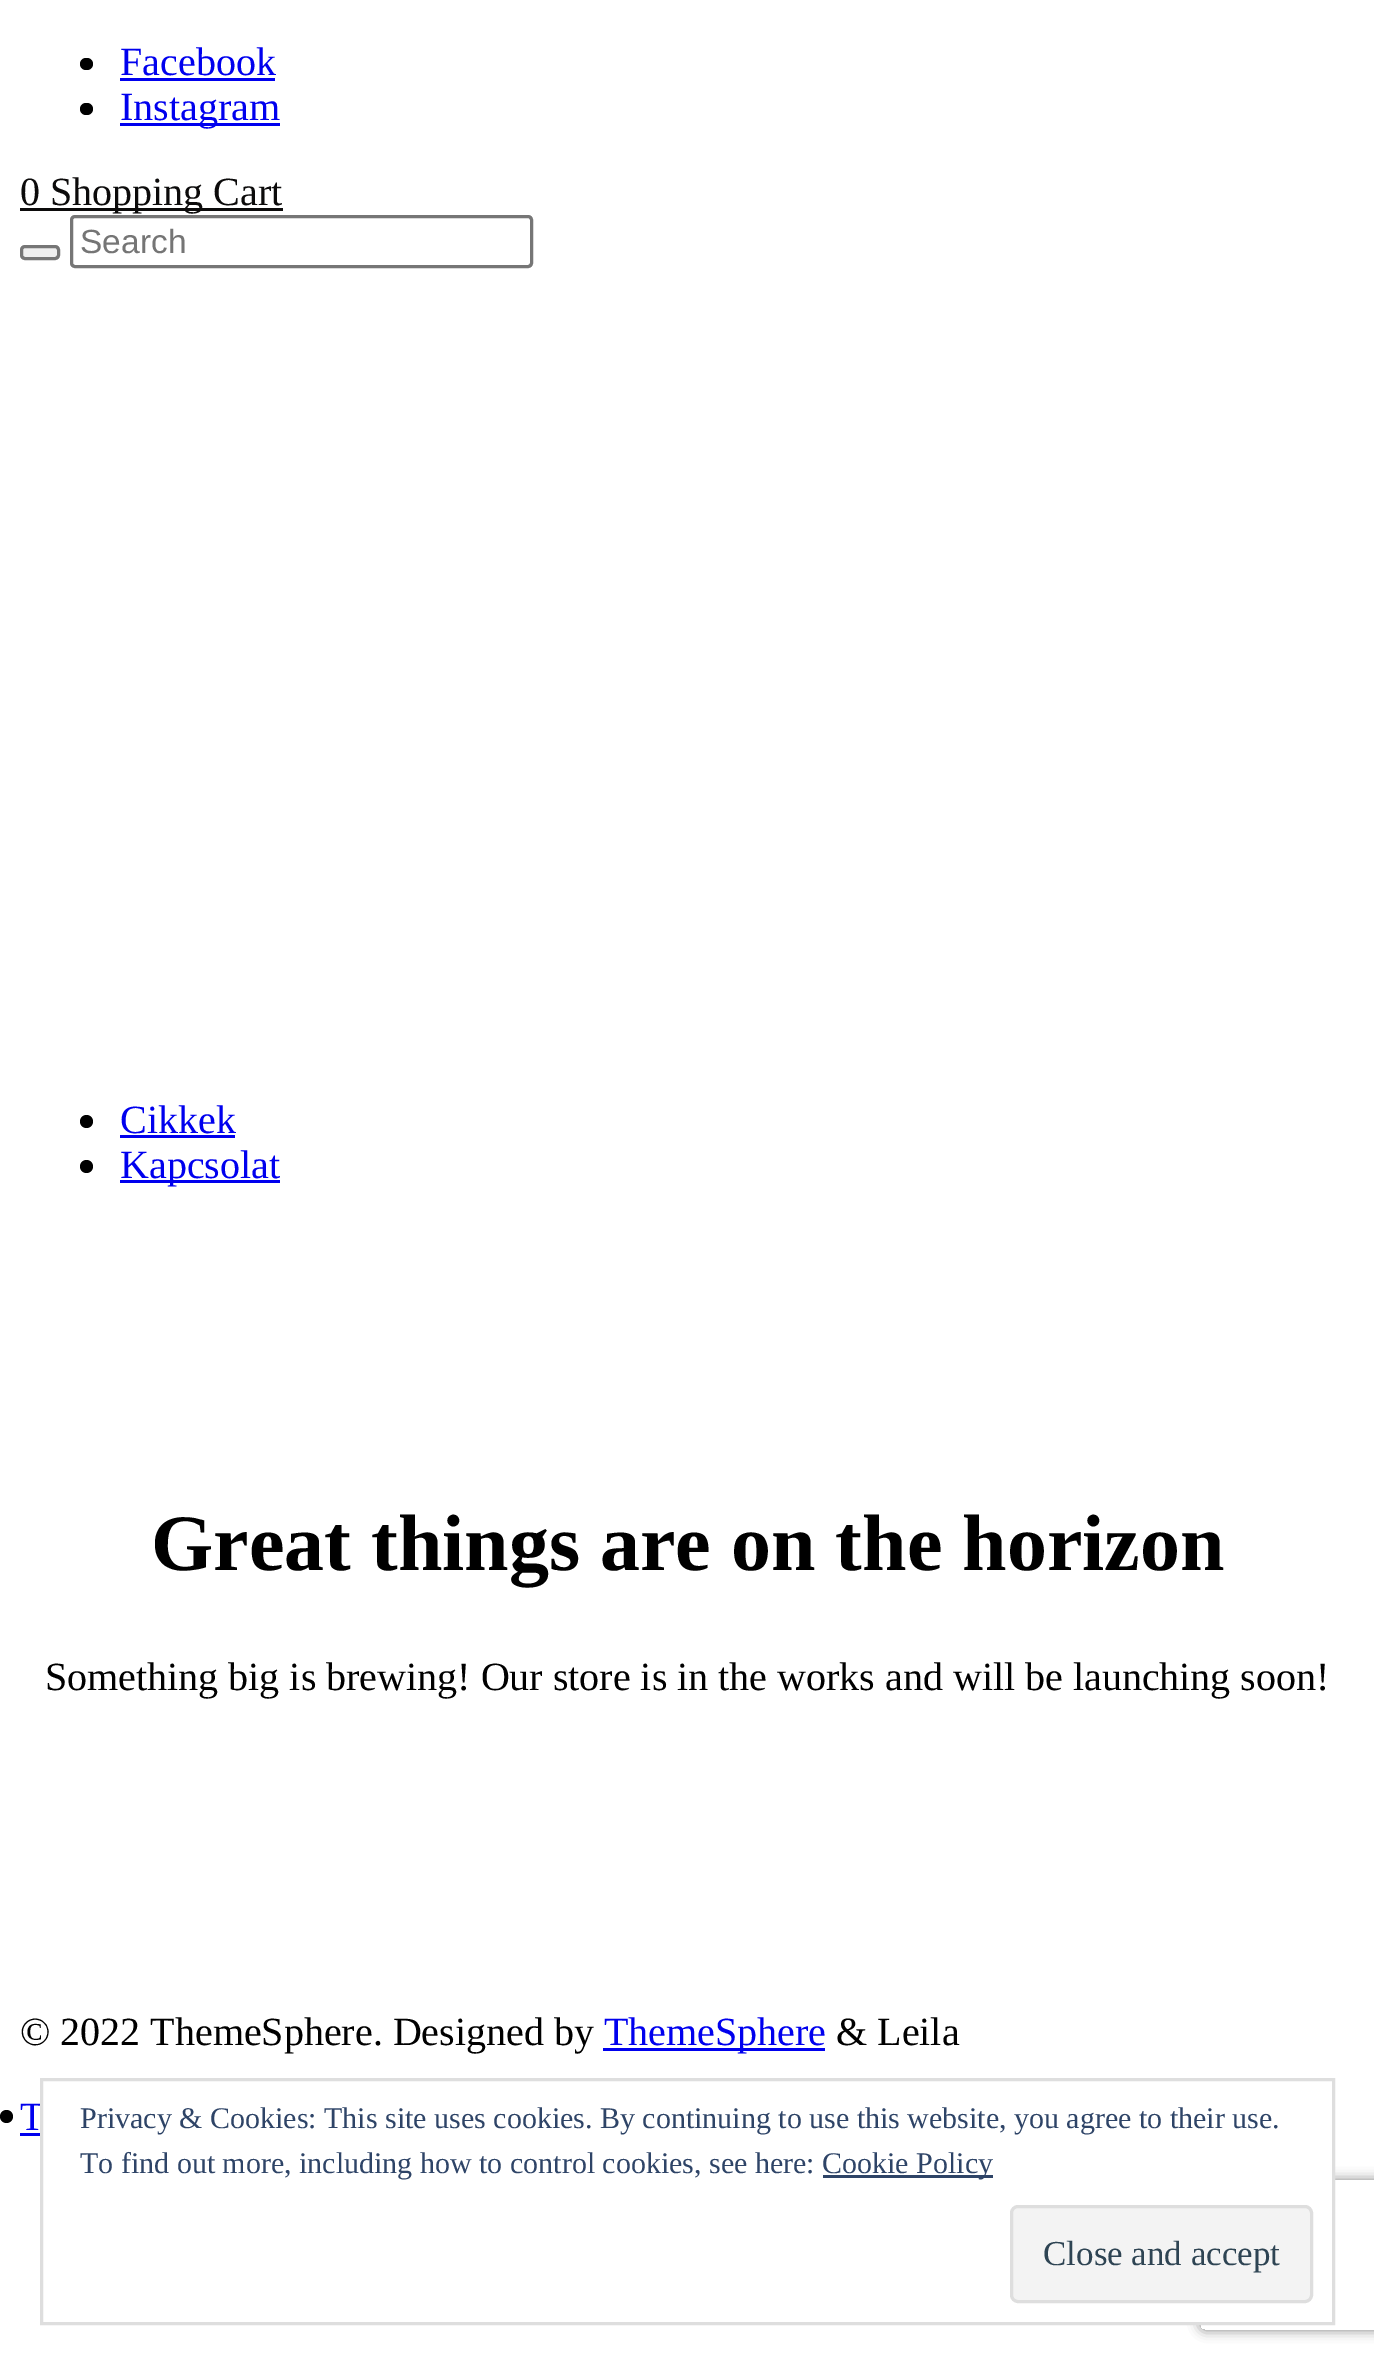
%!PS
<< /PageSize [1374 2365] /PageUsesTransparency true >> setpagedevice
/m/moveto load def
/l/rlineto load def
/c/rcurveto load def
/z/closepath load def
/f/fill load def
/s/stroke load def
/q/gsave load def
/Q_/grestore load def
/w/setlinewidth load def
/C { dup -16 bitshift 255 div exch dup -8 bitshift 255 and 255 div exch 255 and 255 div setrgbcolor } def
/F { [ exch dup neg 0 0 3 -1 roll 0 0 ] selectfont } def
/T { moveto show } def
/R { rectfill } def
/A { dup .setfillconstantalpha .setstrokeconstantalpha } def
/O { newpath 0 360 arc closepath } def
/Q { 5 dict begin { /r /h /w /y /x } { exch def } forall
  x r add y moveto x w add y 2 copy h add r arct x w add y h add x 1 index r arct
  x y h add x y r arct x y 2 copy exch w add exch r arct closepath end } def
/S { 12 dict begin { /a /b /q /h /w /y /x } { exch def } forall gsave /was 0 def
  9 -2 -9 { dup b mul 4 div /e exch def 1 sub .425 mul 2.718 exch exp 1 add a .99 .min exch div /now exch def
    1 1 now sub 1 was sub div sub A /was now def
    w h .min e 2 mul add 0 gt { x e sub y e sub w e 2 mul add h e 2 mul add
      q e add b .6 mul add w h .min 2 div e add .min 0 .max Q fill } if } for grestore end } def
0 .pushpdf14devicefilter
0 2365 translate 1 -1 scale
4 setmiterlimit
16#FFFFFF C
0 0 1374 2365 R
16#000000 C
80 58 13 12 6 Q f
/LiberationSerif-Regular 40 F
16#0000EE C
(Facebook) 120 75 T
120 78 155 3 R
16#000000 C
80 103 13 12 6 Q f
16#0000EE C
120 123 160 3 R
(Instagram) 120 120 T
16#0C0B0B C
20 208 263 3 R
(0 Shopping Cart) 20 205 T
16#EFEFEF C
21.5 246.5 37 12 3.5 Q q f Q_
16#767676 C
3 w
s
71.5 216.5 460 50 3.5 Q s
/LiberationSans-Regular 33.5 F
16#757575 C
(Search) 80 253 T
16#000000 C
86.5 1121.5 6.5 O f
/LiberationSerif-Regular 40 F
16#0000EE C
(Cikkek) 120 1133 T
120 1135 115 3 R
16#000000 C
86.5 1166.5 6.5 O f
16#0000EE C
120 1180 160 3 R
(Kapcsolat) 120 1178 T
/LiberationSerif-Bold 80 F
16#000000 C
(Great things are on the horizon) 151 1570 T
/LiberationSerif-Regular 40 F
(Something big is brewing! Our store is in the works and will be launching soon!) 45 1690 T
(© 2022 ThemeSphere. Designed by) 20 2045 T
16#0000EE C
603 2048 222 3 R
(ThemeSphere) 604 2045 T
16#000000 C
(& Leila) 836 2045 T
16#0000EE C
(T) 20 2130 T
20 2133 20 3 R
16#000000 C
6.5 2116.5 6.5 O f
q
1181 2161 m 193 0 l 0 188 l -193 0 l z 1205 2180 m 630 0 l 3 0 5 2 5 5 c 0 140 l 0 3 -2 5 -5 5 c -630 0 l -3 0 -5 -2 -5 -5 c 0 -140 l 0 -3 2 -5 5 -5 c z eoclip newpath
16#808080 C
1200 2180 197 150 5 6 1 S
Q_
16#FFFFFF C
43 2103 1289 219 R
16#DEDEDE C
41.5 2079.5 1292 244 rectstroke
/LiberationSerif-Regular 30 F
16#2E4467 C
(Privacy & Cookies: This site uses cookies. By continuing to use this website, you agree to their use.) 80 2128 T
(To find out more, including how to control cookies, see here:) 80 2173 T
823 2175 170 3 R
(Cookie Policy) 822 2173 T
16#F3F3F3 C
1011.5 2206.5 300 95 6.5 Q q f Q_
16#DEDEDE C
s
/LiberationSerif-Regular 35 F
16#2E4453 C
(Close and accept) 1043 2265 T
.poppdf14devicefilter showpage
